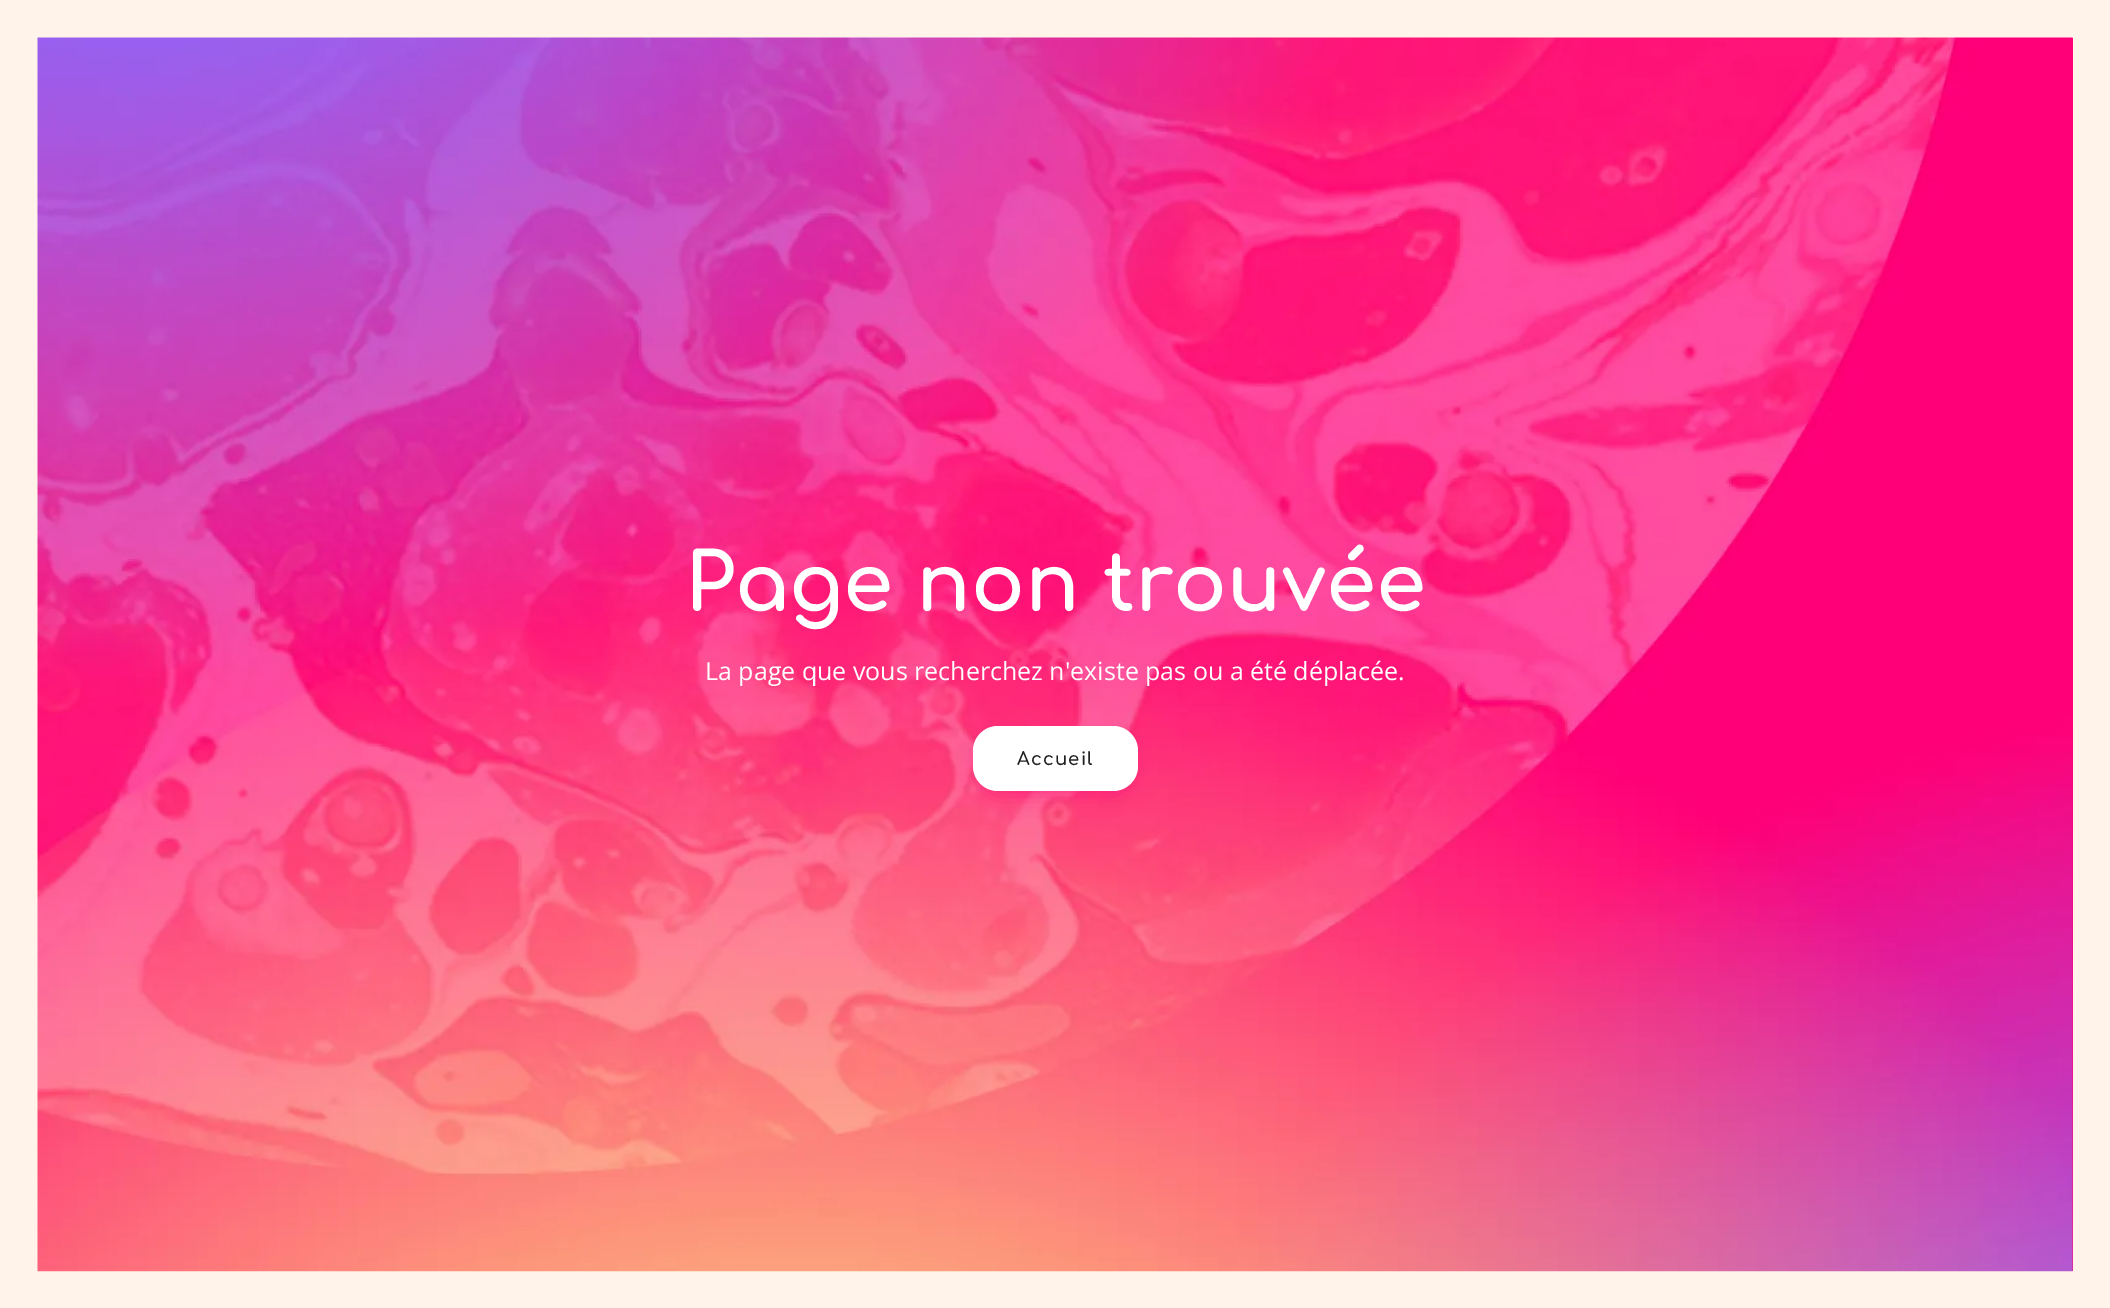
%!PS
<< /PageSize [2110 1308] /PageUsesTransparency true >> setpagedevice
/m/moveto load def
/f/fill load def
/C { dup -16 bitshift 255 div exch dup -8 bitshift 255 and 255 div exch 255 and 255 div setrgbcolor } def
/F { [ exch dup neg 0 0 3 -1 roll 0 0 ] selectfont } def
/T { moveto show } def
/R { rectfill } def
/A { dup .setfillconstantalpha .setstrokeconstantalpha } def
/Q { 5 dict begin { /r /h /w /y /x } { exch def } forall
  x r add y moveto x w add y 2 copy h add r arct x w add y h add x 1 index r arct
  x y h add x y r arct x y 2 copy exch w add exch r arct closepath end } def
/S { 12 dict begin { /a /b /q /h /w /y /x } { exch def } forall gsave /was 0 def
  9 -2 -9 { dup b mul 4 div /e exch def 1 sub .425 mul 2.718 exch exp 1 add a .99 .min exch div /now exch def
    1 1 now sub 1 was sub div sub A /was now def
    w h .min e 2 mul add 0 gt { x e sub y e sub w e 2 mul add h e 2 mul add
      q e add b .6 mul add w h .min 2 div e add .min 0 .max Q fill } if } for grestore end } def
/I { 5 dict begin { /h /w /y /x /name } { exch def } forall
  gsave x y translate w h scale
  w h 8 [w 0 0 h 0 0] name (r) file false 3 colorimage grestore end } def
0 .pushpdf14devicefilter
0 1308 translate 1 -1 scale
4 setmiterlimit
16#FFF3EA C
0 0 2110 1308 R
16#FF0077 C
2072 38 1 1233 R
(1.rgb) 37 37 2036 1235 I
/Comfortaa-Bold 80 F
16#FFFFFF C
(Page non trouvée) 685 611 T
/OpenSans-Regular 25 F
(La page que vous recherchez n'existe pas ou a été déplacée.) 705 680 T
16#FF0077 C
978 741 155 55 20 10 .45 S
16#FFFFFF C
973 726 165 65 25 Q f
/Comfortaa-SemiBold 18 F
16#202020 C
1017 765 m 1.25 0 (Accueil) ashow
.poppdf14devicefilter showpage
